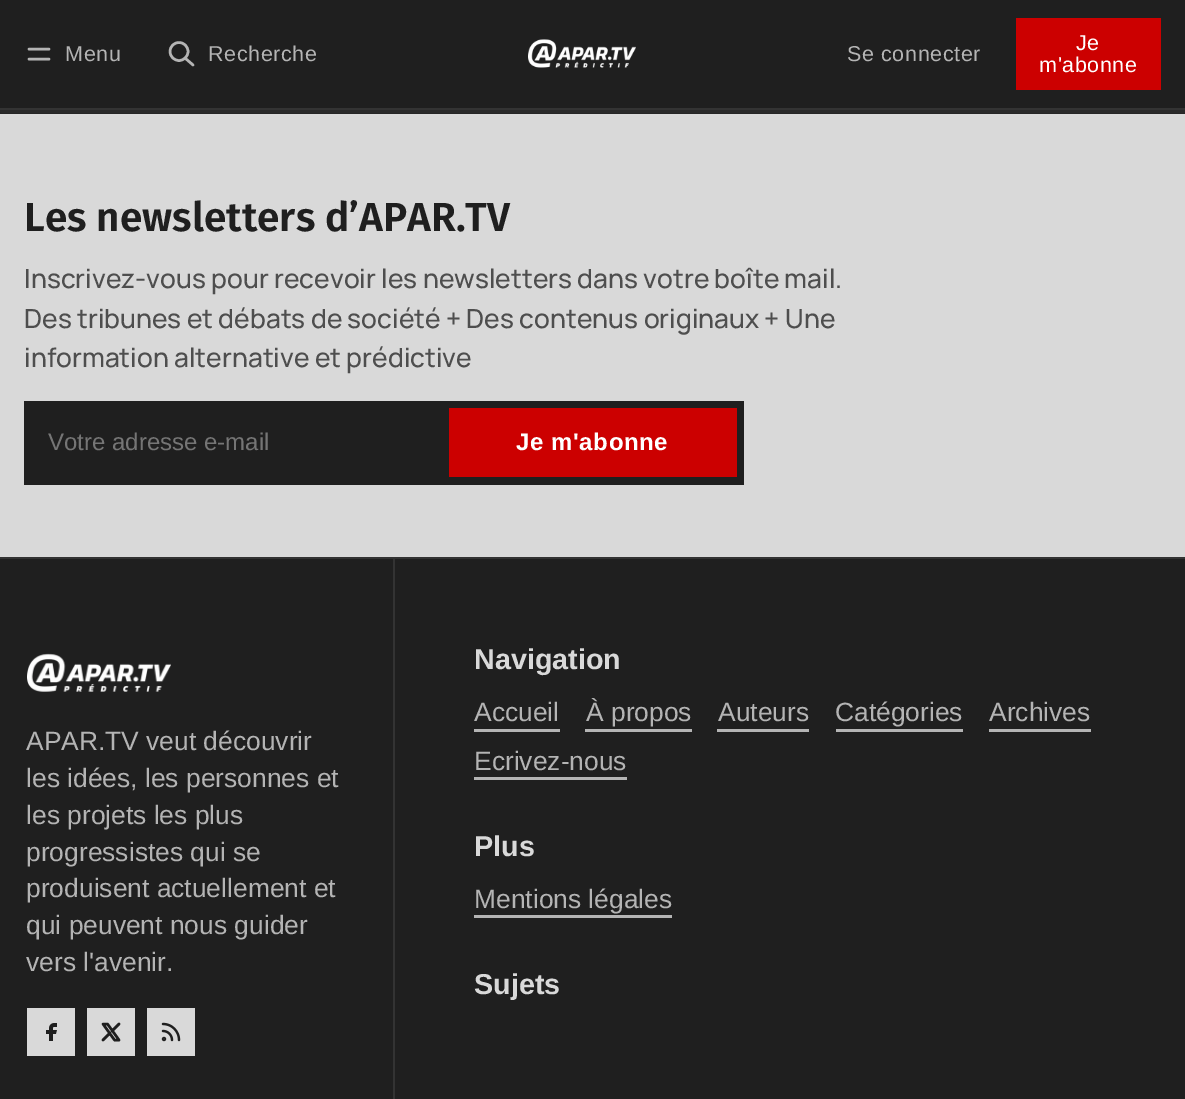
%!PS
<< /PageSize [1185 1099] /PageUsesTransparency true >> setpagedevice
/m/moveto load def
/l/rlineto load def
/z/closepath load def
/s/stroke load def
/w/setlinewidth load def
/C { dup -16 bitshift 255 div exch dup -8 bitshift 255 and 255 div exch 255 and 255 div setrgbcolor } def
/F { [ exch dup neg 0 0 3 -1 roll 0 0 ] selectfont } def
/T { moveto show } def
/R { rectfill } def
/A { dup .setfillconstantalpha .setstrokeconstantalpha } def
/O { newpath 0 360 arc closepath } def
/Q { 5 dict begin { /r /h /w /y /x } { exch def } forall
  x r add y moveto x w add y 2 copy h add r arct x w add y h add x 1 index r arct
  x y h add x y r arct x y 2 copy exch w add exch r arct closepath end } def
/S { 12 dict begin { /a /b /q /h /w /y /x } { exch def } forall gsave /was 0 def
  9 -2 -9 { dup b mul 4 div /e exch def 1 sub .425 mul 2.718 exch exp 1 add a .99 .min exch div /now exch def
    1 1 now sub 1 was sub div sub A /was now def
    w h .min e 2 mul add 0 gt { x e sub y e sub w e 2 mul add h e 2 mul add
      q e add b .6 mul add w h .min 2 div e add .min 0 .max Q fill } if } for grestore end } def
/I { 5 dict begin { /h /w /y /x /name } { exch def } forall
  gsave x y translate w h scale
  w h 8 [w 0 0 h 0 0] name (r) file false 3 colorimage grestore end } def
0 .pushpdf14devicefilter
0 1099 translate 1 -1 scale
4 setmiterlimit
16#1F1F1F C
0 0 1185 1099 R
16#D9D9D9 C
0 114 1185 443 R
16#FFFFFF C
-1 -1 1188 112 0 7.5 .1 S
16#1F1F1F C
0 0 1185 108 R
16#333333 C
0 108 1185 2 R
16#B4B4B4 C
2.5 w
1 setlinecap
1 setlinejoin
29 49 m 20 0 l 29 59 m 20 0 l s
/LiberationSans-Regular 21.5 F
65 61 m .6 0 (Menu) ashow
0 setlinecap
0 setlinejoin
179 51.5 9 O s
1 setlinecap
1 setlinejoin
193 65 m -8 -7 l s
208 61 m .6 0 (Recherche) ashow
(1.rgb) 528 39 108 29 I
847 61 m .6 0 (Se connecter) ashow
16#CC0000 C
1016 18 145 72 R
16#FFFFFF C
1076 50 m .6 0 (Je) ashow
1039 72 m .6 0 (m'abonne) ashow
/FiraSans-SemiBold 40.6 F
16#1F1F1F C
(Les newsletters d’APAR.TV) 24 231 T
/Manrope-ExtraLight 26.4 F
16#4E4E4E C
(Inscrivez-vous pour recevoir les newsletters dans votre boîte mail.) 24 288 T
(Des tribunes et débats de société + Des contenus originaux + Une) 24 328 T
(information alternative et prédictive) 24 367 T
16#1F1F1F C
24 401 720 84 R
/LiberationSans-Regular 24 F
16#757575 C
(Votre adresse e-mail) 48 450 T
16#CC0000 C
449 408 288 69 R
/LiberationSans-Bold 24 F
16#FFFFFF C
516 450 m .6 0 (Je m'abonne) ashow
16#333333 C
0 557 1185 2 R
393 558 2 541 R
(2.rgb) 27 653 144 39 I
/LiberationSans-Regular 26.4 F
16#B4B4B4 C
(APAR.TV veut découvrir) 26 750 T
(les idées, les personnes et) 26 787 T
(les projets les plus) 26 824 T
(progressistes qui se) 26 861 T
(produisent actuellement et) 26 897 T
(qui peuvent nous guider) 26 934 T
(vers l'avenir.) 26 971 T
16#D9D9D9 C
27 1008 48 48 R
(3.rgb) 46 1023 11 18 I
87 1008 48 48 R
16#1F1F1F C
103 1024 m 11.5 16 l 4.5 0 l -11.5 -16 l z 103 1040 m 7 -7 l 112 1031 m 7 -7 l s
16#D9D9D9 C
147 1008 48 48 R
(4.rgb) 161 1022 20 20 I
/LiberationSans-Bold 28.75 F
(Navigation) 474 669 T
16#B4B4B4 C
474 729 86 3 R
/LiberationSans-Regular 26.4 F
(Accueil) 474 721 T
585 729 107 3 R
(À propos) 586 721 T
717 729 92 3 R
(Auteurs) 718 721 T
836 729 127 3 R
(Catégories) 835 721 T
989 729 102 3 R
(Archives) 989 721 T
474 777 153 3 R
(Ecrivez-nous) 474 770 T
/LiberationSans-Bold 28.75 F
16#D9D9D9 C
(Plus) 474 856 T
16#B4B4B4 C
474 915 198 3 R
/LiberationSans-Regular 26.4 F
(Mentions légales) 474 908 T
/LiberationSans-Bold 28.75 F
16#D9D9D9 C
(Sujets) 474 994 T
.poppdf14devicefilter showpage
